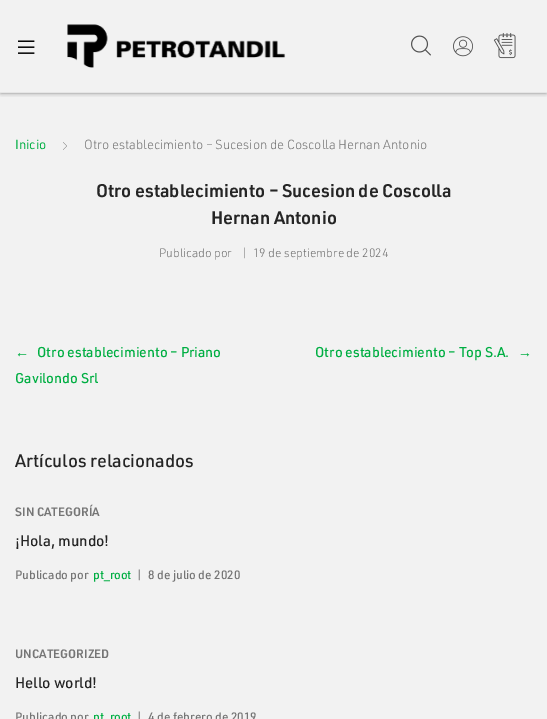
%!PS
<< /PageSize [547 719] /PageUsesTransparency true >> setpagedevice
/q/gsave load def
/Q_/grestore load def
/C { dup -16 bitshift 255 div exch dup -8 bitshift 255 and 255 div exch 255 and 255 div setrgbcolor } def
/F { [ exch dup neg 0 0 3 -1 roll 0 0 ] selectfont } def
/T { moveto show } def
/R { rectfill } def
/A { dup .setfillconstantalpha .setstrokeconstantalpha } def
/Q { 5 dict begin { /r /h /w /y /x } { exch def } forall
  x r add y moveto x w add y 2 copy h add r arct x w add y h add x 1 index r arct
  x y h add x y r arct x y 2 copy exch w add exch r arct closepath end } def
/S { 12 dict begin { /a /b /q /h /w /y /x } { exch def } forall gsave /was 0 def
  9 -2 -9 { dup b mul 4 div /e exch def 1 sub .425 mul 2.718 exch exp 1 add a .99 .min exch div /now exch def
    1 1 now sub 1 was sub div sub A /was now def
    w h .min e 2 mul add 0 gt { x e sub y e sub w e 2 mul add h e 2 mul add
      q e add b .6 mul add w h .min 2 div e add .min 0 .max Q fill } if } for grestore end } def
/I { 5 dict begin { /h /w /y /x /name } { exch def } forall
  gsave x y translate w h scale
  w h 8 [w 0 0 h 0 0] name (r) file false 3 colorimage grestore end } def
0 .pushpdf14devicefilter
0 719 translate 1 -1 scale
4 setmiterlimit
16#F2F2F2 C
0 0 547 719 R
q
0 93 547 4 rectclip
16#000000 C
1 1 545 91 0 2.5 .66 S
Q_
16#E6E6E6 C
0 92 547 1 R
(1.rgb) 18 40 17 14 I
(2.rgb) 67 24 219 44 I
(3.rgb) 411 35 20 21 I
(4.rgb) 453 36 20 21 I
(5.rgb) 493 33 23 26 I
/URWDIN-Regular 13 F
16#00AE42 C
(Inicio) 15 149 T
(6.rgb) 63 142 4 8 I
/URWDIN-Light 13 F
16#757575 C
(Otro establecimiento – Sucesion de Coscolla Hernan Antonio) 84 149 T
/URWDIN-SemiBold 18 F
16#252525 C
(Otro establecimiento – Sucesion de Coscolla) 96 197 T
(Hernan Antonio) 211 224 T
/URWDIN-Light 12 F
16#757575 C
(Publicado por) 159 257 T
(|) 241 257 T
(19 de septiembre de 2024) 253 257 T
/LiberationSerif-Regular 14 F
16#00AE42 C
(←) 15 357 T
/URWDIN-Medium 14 F
(Otro establecimiento – Priano) 37 357 T
(Gavilondo Srl) 15 383 T
(Otro establecimiento – Top S.A.) 315 357 T
/LiberationSerif-Regular 14 F
(→) 518 357 T
/URWDIN-Medium 18 F
16#252525 C
(Artículos relacionados) 15 467 T
/URWDIN-SemiBold 12 F
16#757575 C
(SIN CATEGORÍA) 15 516 T
/URWDIN-Medium 15 F
16#252525 C
(¡Hola, mundo!) 15 546 T
/URWDIN-Medium 12 F
16#757575 C
(Publicado por) 15 579 T
16#00AE42 C
(pt_root) 93 579 T
16#757575 C
(|) 136 579 T
(8 de julio de 2020) 148 579 T
/URWDIN-SemiBold 12 F
(UNCATEGORIZED) 15 658 T
/URWDIN-Medium 15 F
16#252525 C
(Hello world!) 15 688 T
/URWDIN-Medium 12 F
16#757575 C
(Publicado por) 15 721 T
16#00AE42 C
(pt_root) 93 721 T
16#757575 C
(|) 136 721 T
(4 de febrero de 2019) 148 721 T
.poppdf14devicefilter showpage
